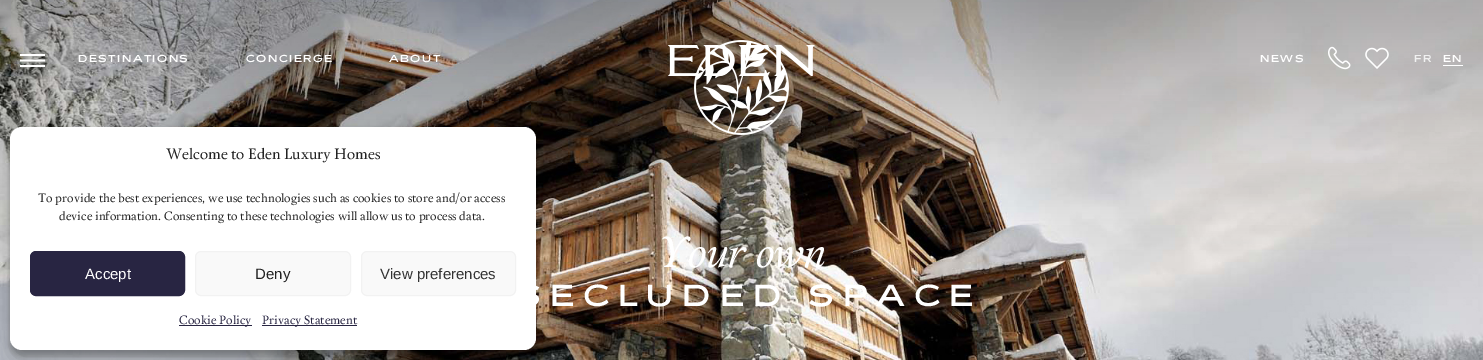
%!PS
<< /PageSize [1483 360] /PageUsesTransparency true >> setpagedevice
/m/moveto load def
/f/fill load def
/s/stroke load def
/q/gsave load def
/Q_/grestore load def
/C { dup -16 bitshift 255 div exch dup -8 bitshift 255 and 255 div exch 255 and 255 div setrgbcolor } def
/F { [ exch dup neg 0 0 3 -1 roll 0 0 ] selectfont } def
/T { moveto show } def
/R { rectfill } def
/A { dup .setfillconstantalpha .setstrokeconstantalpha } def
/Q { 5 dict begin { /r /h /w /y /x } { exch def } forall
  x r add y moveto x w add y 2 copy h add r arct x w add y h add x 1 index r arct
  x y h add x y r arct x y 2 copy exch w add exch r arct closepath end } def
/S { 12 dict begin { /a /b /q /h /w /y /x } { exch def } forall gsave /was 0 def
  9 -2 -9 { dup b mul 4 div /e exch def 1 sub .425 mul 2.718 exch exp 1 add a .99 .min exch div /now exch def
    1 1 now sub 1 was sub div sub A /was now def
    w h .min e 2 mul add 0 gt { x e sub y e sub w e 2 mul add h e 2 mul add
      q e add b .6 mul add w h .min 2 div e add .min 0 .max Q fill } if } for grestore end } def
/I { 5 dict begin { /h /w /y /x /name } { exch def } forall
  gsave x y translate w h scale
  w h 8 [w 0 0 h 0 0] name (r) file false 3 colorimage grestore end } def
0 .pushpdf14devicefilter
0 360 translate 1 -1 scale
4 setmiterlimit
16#FFFFFF C
0 0 1483 360 R
(5.rgb) 0 0 1483 360 I
(1.rgb) 20 54 25 13 I
(6.rgb) 694 40 95 95 I
(2.rgb) 668 45 147 31 I
(3.rgb) 1328 46 23 24 I
(4.rgb) 1365 47 24 22 I
/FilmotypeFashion-Regular 10 F
78 62 m 1.5 0 (DESTINATIONS) ashow
246 62 m 1.5 0 (CONCIERGE) ashow
389 62 m 1.5 0 (ABOUT) ashow
1260 62 m 1.5 0 (NEWS) ashow
16#F1F1F1 C
1414 62 m 1.5 0 (FR) ashow
16#FFFFFF C
1443 62 m 1.5 0 (EN) ashow
1443 65 20 1 R
16#000000 C
10 133 526 223 12 3 .23 S
10 137 526 223 12 10 .19 S
16#FFFFFF C
10 127 526 223 12 Q f
/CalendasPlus-Regular 15 F
16#222222 C
(Welcome to Eden Luxury Homes) 166 159 T
/CalendasPlus-Regular 12 F
(To provide the best experiences, we use technologies such as cookies to store and/or access) 38 202 T
(device information. Consenting to these technologies will allow us to process data.) 59 220 T
16#282542 C
30.5 251.5 154 44 5.5 Q q f Q_
s
/LiberationSans-Regular 15 F
16#FFFFFF C
(Accept) 85 279 T
16#F9F9F9 C
195.5 251.5 155 44 5.5 Q q f Q_
16#F2F2F2 C
s
16#222222 C
(Deny) 255 279 T
16#F9F9F9 C
361.5 251.5 154 44 5.5 Q q f Q_
16#F2F2F2 C
s
16#333333 C
(View preferences) 380 279 T
16#282542 C
179 325 73 1 R
/CalendasPlus-Regular 12 F
(Cookie Policy) 179 324 T
262 325 95 1 R
(Privacy Statement) 262 324 T
/CalendasPlus-Italic 43 F
16#FFFFFF C
(Your own) 657 267 T
/FilmotypeFashion-Regular 30 F
515 306 m 9 0 (SECLUDED SPACE) ashow
.poppdf14devicefilter showpage
